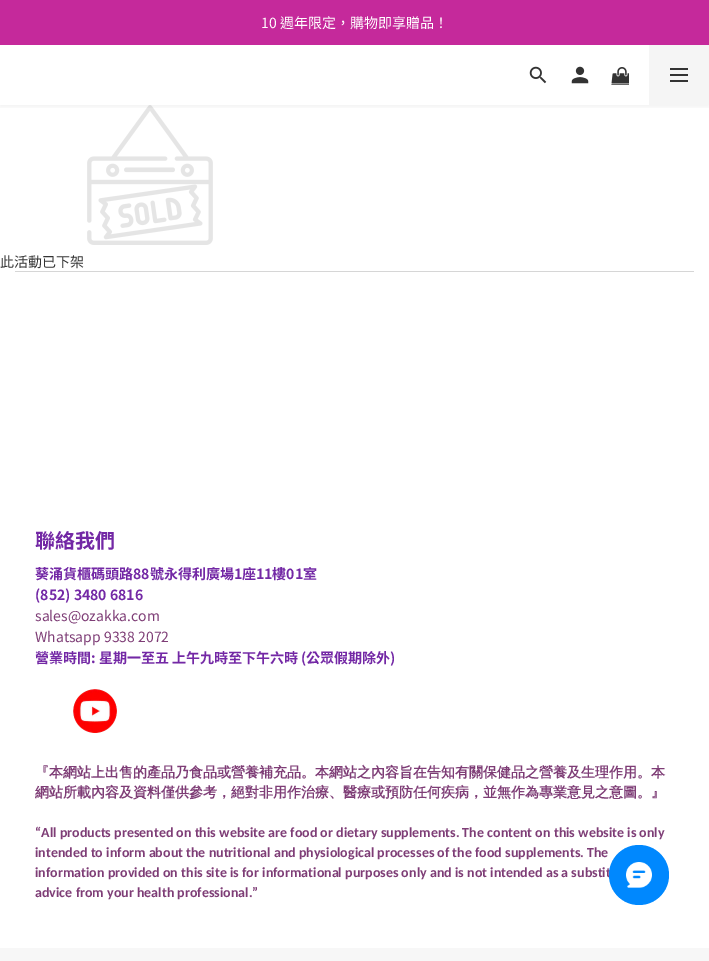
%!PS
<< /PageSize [709 961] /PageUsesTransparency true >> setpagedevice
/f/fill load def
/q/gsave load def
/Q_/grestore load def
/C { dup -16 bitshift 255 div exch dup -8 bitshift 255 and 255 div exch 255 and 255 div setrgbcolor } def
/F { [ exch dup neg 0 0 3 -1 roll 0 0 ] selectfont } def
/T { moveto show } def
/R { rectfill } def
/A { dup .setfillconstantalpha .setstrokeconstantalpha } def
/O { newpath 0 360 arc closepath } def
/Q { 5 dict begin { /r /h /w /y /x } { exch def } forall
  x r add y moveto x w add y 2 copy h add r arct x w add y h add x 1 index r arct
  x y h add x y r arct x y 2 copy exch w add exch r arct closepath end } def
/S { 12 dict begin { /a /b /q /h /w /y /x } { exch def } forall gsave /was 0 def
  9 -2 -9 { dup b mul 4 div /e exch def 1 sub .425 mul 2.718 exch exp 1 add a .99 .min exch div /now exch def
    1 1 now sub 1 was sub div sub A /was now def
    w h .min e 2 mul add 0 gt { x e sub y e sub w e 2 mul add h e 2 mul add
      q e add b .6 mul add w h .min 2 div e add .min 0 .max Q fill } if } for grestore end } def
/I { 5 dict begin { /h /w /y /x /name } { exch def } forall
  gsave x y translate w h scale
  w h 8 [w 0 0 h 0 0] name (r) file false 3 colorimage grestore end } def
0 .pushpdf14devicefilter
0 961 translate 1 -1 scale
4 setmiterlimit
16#FFFFFF C
0 0 709 961 R
16#C5299B C
0 0 709 45 R
/NotoSansTC-Regular 14 F
16#FFFFFF C
(10 週年限定，購物即享贈品！) 261 28 T
(4.rgb) 87 105 126 140 I
q
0 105 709 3 rectclip
16#000000 C
0 47 709 60 0 3 .06 S
Q_
(1.rgb) 529 66 18 18 I
(2.rgb) 571 66 18 18 I
(3.rgb) 611 67 18 18 I
16#F5F5F5 C
649 45 60 60 R
16#333333 C
670 74 18 2 R
670 68 18 2 R
670 80 18 2 R
(此活動已下架) 0 267 T
16#D6D6D6 C
15 271 679 1 R
/NotoSansTC-Bold 20 F
16#7328A5 C
(聯絡我們) 35 548 T
/NotoSansTC-Bold 14 F
(葵涌貨櫃碼頭路88號永得利廣場1座11樓01室) 35 579 T
(\(852\) 3480 6816) 35 600 T
/NotoSansTC-Regular 14 F
16#7E3D76 C
(sales@ozakka.com) 35 621 T
(Whatsapp 9338 2072) 35 642 T
/NotoSansTC-Bold 14 F
16#7328A5 C
(營業時間: 星期一至五 上午九時至下午六時 \(公眾假期除外\)) 35 663 T
(5.rgb) 73 689 44 44 I
/WenQuanYiZenHei-Bold 14 F
16#7E3D76 C
(『本網站上出售的產品乃食品或營養補充品。本網站之內容旨在告知有關保健品之營養及生理作用。本) 35 777 T
(網站所載內容及資料僅供參考，絕對非用作治療、醫療或預防任何疾病，並無作為專業意見之意圖。』) 35 797 T
/Carlito-Bold 14 F
(“All products presented on this website are food or dietary supplements. The content on this website is only) 35 837 T
(intended to inform about the nutritional and physiological processes of the food supplements. The) 35 857 T
(information provided on this site is for informational purposes only and is not intended as a substit) 35 877 T
(advice from your health professional.”) 35 897 T
16#F7F7F7 C
0 948 709 13 R
16#0088FE C
639 875 30 O f
(6.rgb) 626 862 26 26 I
.poppdf14devicefilter showpage
